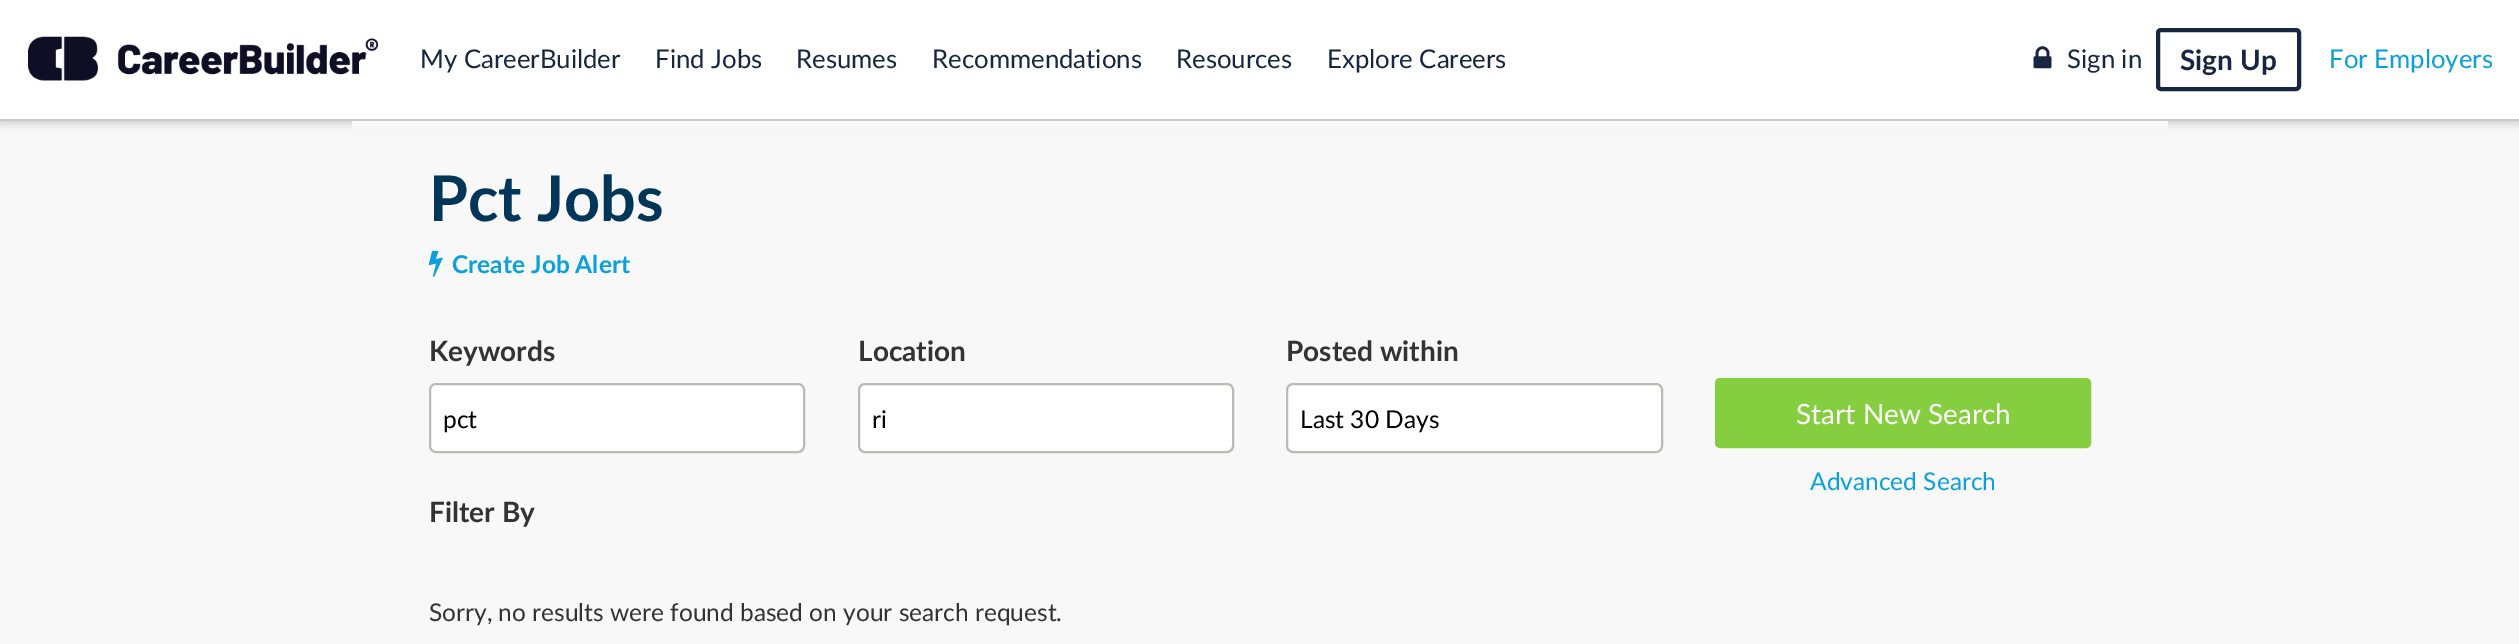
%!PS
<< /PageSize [2519 644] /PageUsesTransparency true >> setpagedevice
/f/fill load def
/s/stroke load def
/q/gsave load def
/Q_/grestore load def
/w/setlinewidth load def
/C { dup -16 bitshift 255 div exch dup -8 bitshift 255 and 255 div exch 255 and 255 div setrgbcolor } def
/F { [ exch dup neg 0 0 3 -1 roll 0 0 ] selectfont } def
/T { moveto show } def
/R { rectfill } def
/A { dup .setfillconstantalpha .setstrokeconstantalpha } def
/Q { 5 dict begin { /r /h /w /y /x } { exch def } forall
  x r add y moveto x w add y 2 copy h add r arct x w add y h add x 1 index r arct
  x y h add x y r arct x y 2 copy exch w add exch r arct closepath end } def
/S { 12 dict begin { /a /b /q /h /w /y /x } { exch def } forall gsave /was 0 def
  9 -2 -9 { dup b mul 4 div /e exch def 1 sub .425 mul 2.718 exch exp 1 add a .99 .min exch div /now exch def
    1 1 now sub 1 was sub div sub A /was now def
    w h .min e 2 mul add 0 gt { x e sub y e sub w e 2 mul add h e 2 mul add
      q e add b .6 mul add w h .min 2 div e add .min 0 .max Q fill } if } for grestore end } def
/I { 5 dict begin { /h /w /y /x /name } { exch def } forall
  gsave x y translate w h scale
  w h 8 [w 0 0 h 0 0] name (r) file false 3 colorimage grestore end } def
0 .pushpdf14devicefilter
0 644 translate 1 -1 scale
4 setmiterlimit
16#F8F8F8 C
0 0 2519 644 R
16#989292 C
0 2 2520 121 0 4.5 .5 S
16#FFFFFF C
0 0 2519 119 R
16#CCC9C9 C
0 119 2519 2 R
(1.rgb) 28 36 350 45 I
/Lato-Regular 25.75 F
16#182642 C
(My CareerBuilder) 420 68 T
(Find Jobs) 655 68 T
(Resumes) 796 68 T
(Recommendations) 932 68 T
(Resources) 1176 68 T
(Explore Careers) 1327 68 T
(2.rgb) 2033 46 19 23 I
(Sign in) 2067 68 T
4 w
2158 30 141 59 3 Q s
/Lato-Bold 28 F
(Sign Up) 2180 70 T
/Lato-Regular 25.75 F
16#09A0DB C
(For Employers) 2329 68 T
16#F8F8F8 C
352 121 1816 9 R
/Lato-Bold 63 F
16#023658 C
(Pct Jobs) 429 221 T
(3.rgb) 428 251 15 26 I
/Lato-Bold 24.5 F
16#09A0DB C
(Create Job Alert) 452 273 T
/Lato-Bold 28 F
16#333333 C
(Keywords) 429 361 T
16#FFFFFF C
430 384 374 68 6 Q q f Q_
16#BDBAB4 C
2 w
s
/Lato-Regular 24.5 F
16#000000 C
(pct) 443 428 T
/Lato-Bold 28 F
16#333333 C
(Location) 858 361 T
16#FFFFFF C
859 384 374 68 6 Q q f Q_
16#BDBAB4 C
s
/Lato-Regular 24.5 F
16#000000 C
(ri) 872 428 T
/Lato-Bold 28 F
16#333333 C
(Posted within) 1286 361 T
16#FFFFFF C
1287 384 375 68 6 Q q f Q_
16#BDBAB4 C
s
/Lato-Regular 24.5 F
16#000000 C
(Last 30 Days) 1300 428 T
16#85CE3F C
1717 380 372 66 3 Q q f Q_
4 w
s
/Lato-Regular 28 F
16#FFFFFF C
(Start New Search) 1796 424 T
/Lato-Regular 24.5 F
16#09A0DB C
(Advanced Search) 1810 490 T
/Lato-Bold 28 F
16#333333 C
(Filter By) 429 522 T
/Lato-Regular 24.5 F
(Sorry, no results were found based on your search request.) 429 621 T
.poppdf14devicefilter showpage
